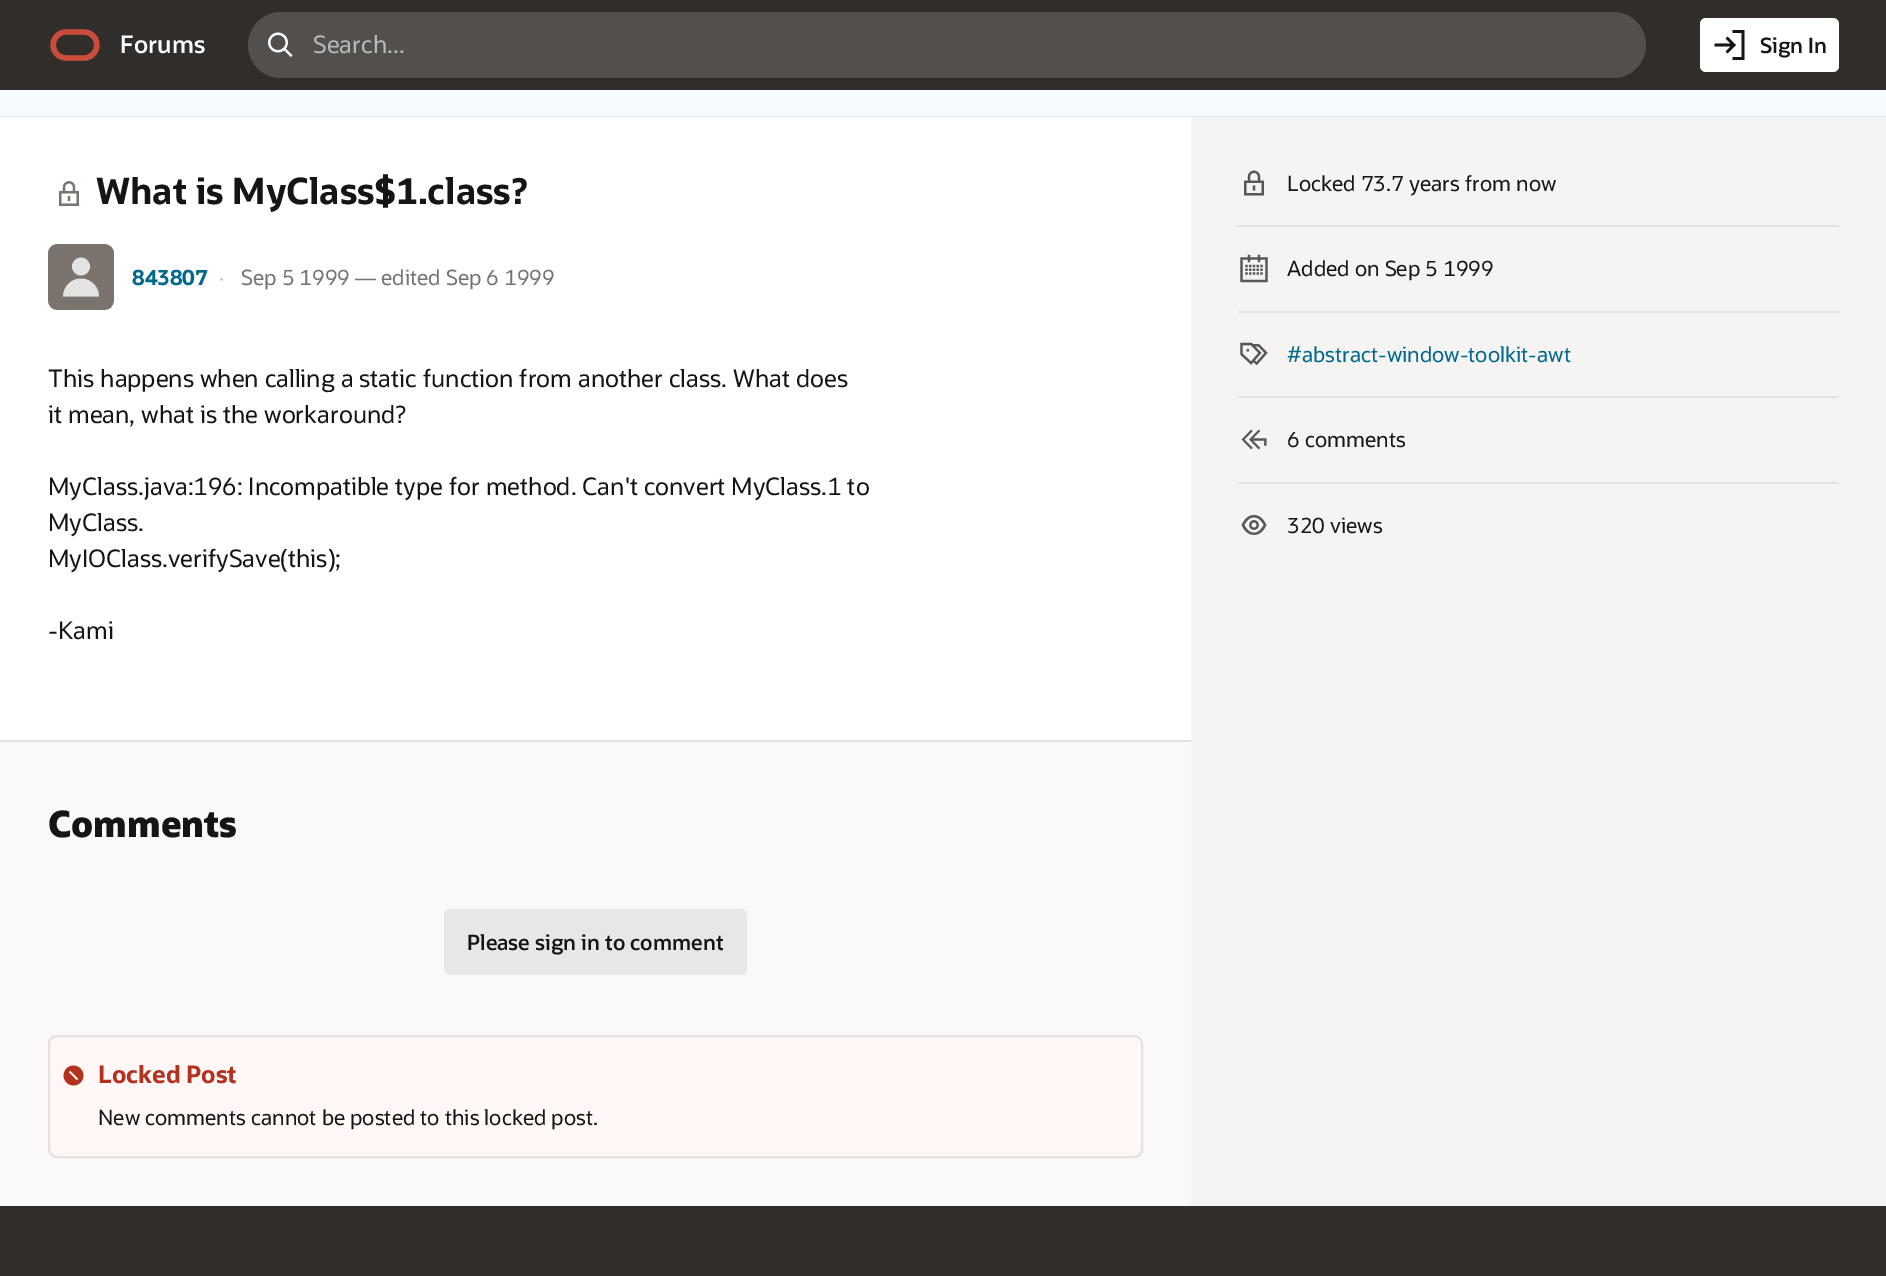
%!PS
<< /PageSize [1886 1276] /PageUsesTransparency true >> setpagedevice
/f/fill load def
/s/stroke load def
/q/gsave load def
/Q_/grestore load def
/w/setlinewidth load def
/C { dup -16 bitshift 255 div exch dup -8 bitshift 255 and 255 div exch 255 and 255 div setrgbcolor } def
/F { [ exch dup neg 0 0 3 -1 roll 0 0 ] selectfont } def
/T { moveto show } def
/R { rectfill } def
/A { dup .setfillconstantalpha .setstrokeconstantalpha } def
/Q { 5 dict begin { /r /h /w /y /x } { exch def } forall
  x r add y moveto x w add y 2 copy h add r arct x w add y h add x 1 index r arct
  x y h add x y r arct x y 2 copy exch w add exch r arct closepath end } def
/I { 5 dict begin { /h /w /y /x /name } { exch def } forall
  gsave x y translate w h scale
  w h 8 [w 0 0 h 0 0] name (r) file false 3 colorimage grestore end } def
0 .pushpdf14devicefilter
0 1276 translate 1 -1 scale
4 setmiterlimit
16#312D2A C
0 0 1886 1276 R
16#F6FAFC C
0 90 1886 26 R
0.1 A
16#FFFFFF C
2 w
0 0 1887 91 rectstroke
1 A
16#312D2A C
0 0 1886 90 R
(1.rgb) 50 29 50 32 I
/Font-SemiBold 24 F
16#FFFFFF C
(Forums) 120 53 T
16#524F4C C
248 12 1398 66 33 Q f
(2.rgb) 268 32 25 25 I
/Font-Regular 24 F
16#B9B9B8 C
(Search...) 313 53 T
16#FFFFFF C
1700 18 139 54 6 Q f
(3.rgb) 1714 30 31 30 I
/Font-SemiBold 21 F
16#161513 C
(Sign In) 1760 53 T
16#FBF9F8 C
0 742 1191 464 R
16#E0E3E5 C
0 116 1886 1 R
16#FFFFFF C
0 117 1191 623 R
(4.rgb) 59 181 20 25 I
/Font-Bold 36 F
16#161513 C
(What is MyClass$1.class?) 96 204 T
(5.rgb) 48 244 66 66 I
/Font-Bold 21 F
16#00688C C
(843807) 132 285 T
/Font-Regular 21 F
16#B9B9B8 C
(·) 219 285 T
16#737371 C
(Sep 5 1999 — edited Sep 6 1999) 241 285 T
/Font-Regular 24 F
16#161513 C
(This happens when calling a static function from another class. What does) 48 387 T
(it mean, what is the workaround?) 48 423 T
(MyClass.java:196: Incompatible type for method. Can't convert MyClass.1 to) 48 495 T
(MyClass.) 48 531 T
(MyIOClass.verifySave\(this\);) 48 567 T
(-Kami) 48 639 T
16#E2E0DF C
0 740 1191 2 R
/Font-ExtraBold 36 F
16#161513 C
(Comments) 48 837 T
16#E9E7E6 C
444 909 303 66 6 Q f
/Font-SemiBold 21 F
16#161513 C
(Please sign in to comment) 467 950 T
16#FFF8F7 C
49 1036 1093 121 8 Q q f Q_
16#E8E1E0 C
s
(6.rgb) 63 1065 21 21 I
/Font-Bold 24 F
16#B3311F C
(Locked Post) 98 1083 T
/Font-Regular 21 F
16#161513 C
(New comments cannot be posted to this locked post.) 98 1125 T
16#F5F4F2 C
1191 117 695 1089 R
16#E3E2E0 C
1239 225 600 2 R
(7.rgb) 1244 170 20 26 I
16#161513 C
(Locked 73.7 years from now) 1287 191 T
16#E3E2E0 C
1239 311 600 2 R
(8.rgb) 1240 254 28 29 I
16#161513 C
(Added on Sep 5 1999) 1287 276 T
16#E3E2E0 C
1239 396 600 2 R
(9.rgb) 1240 342 28 24 I
16#00688C C
(#abstract-window-toolkit-awt) 1287 362 T
16#E3E2E0 C
1239 482 600 2 R
(10.rgb) 1241 429 26 21 I
16#161513 C
(6 comments) 1287 447 T
(11.rgb) 1241 515 26 20 I
(320 views) 1287 533 T
.poppdf14devicefilter showpage
